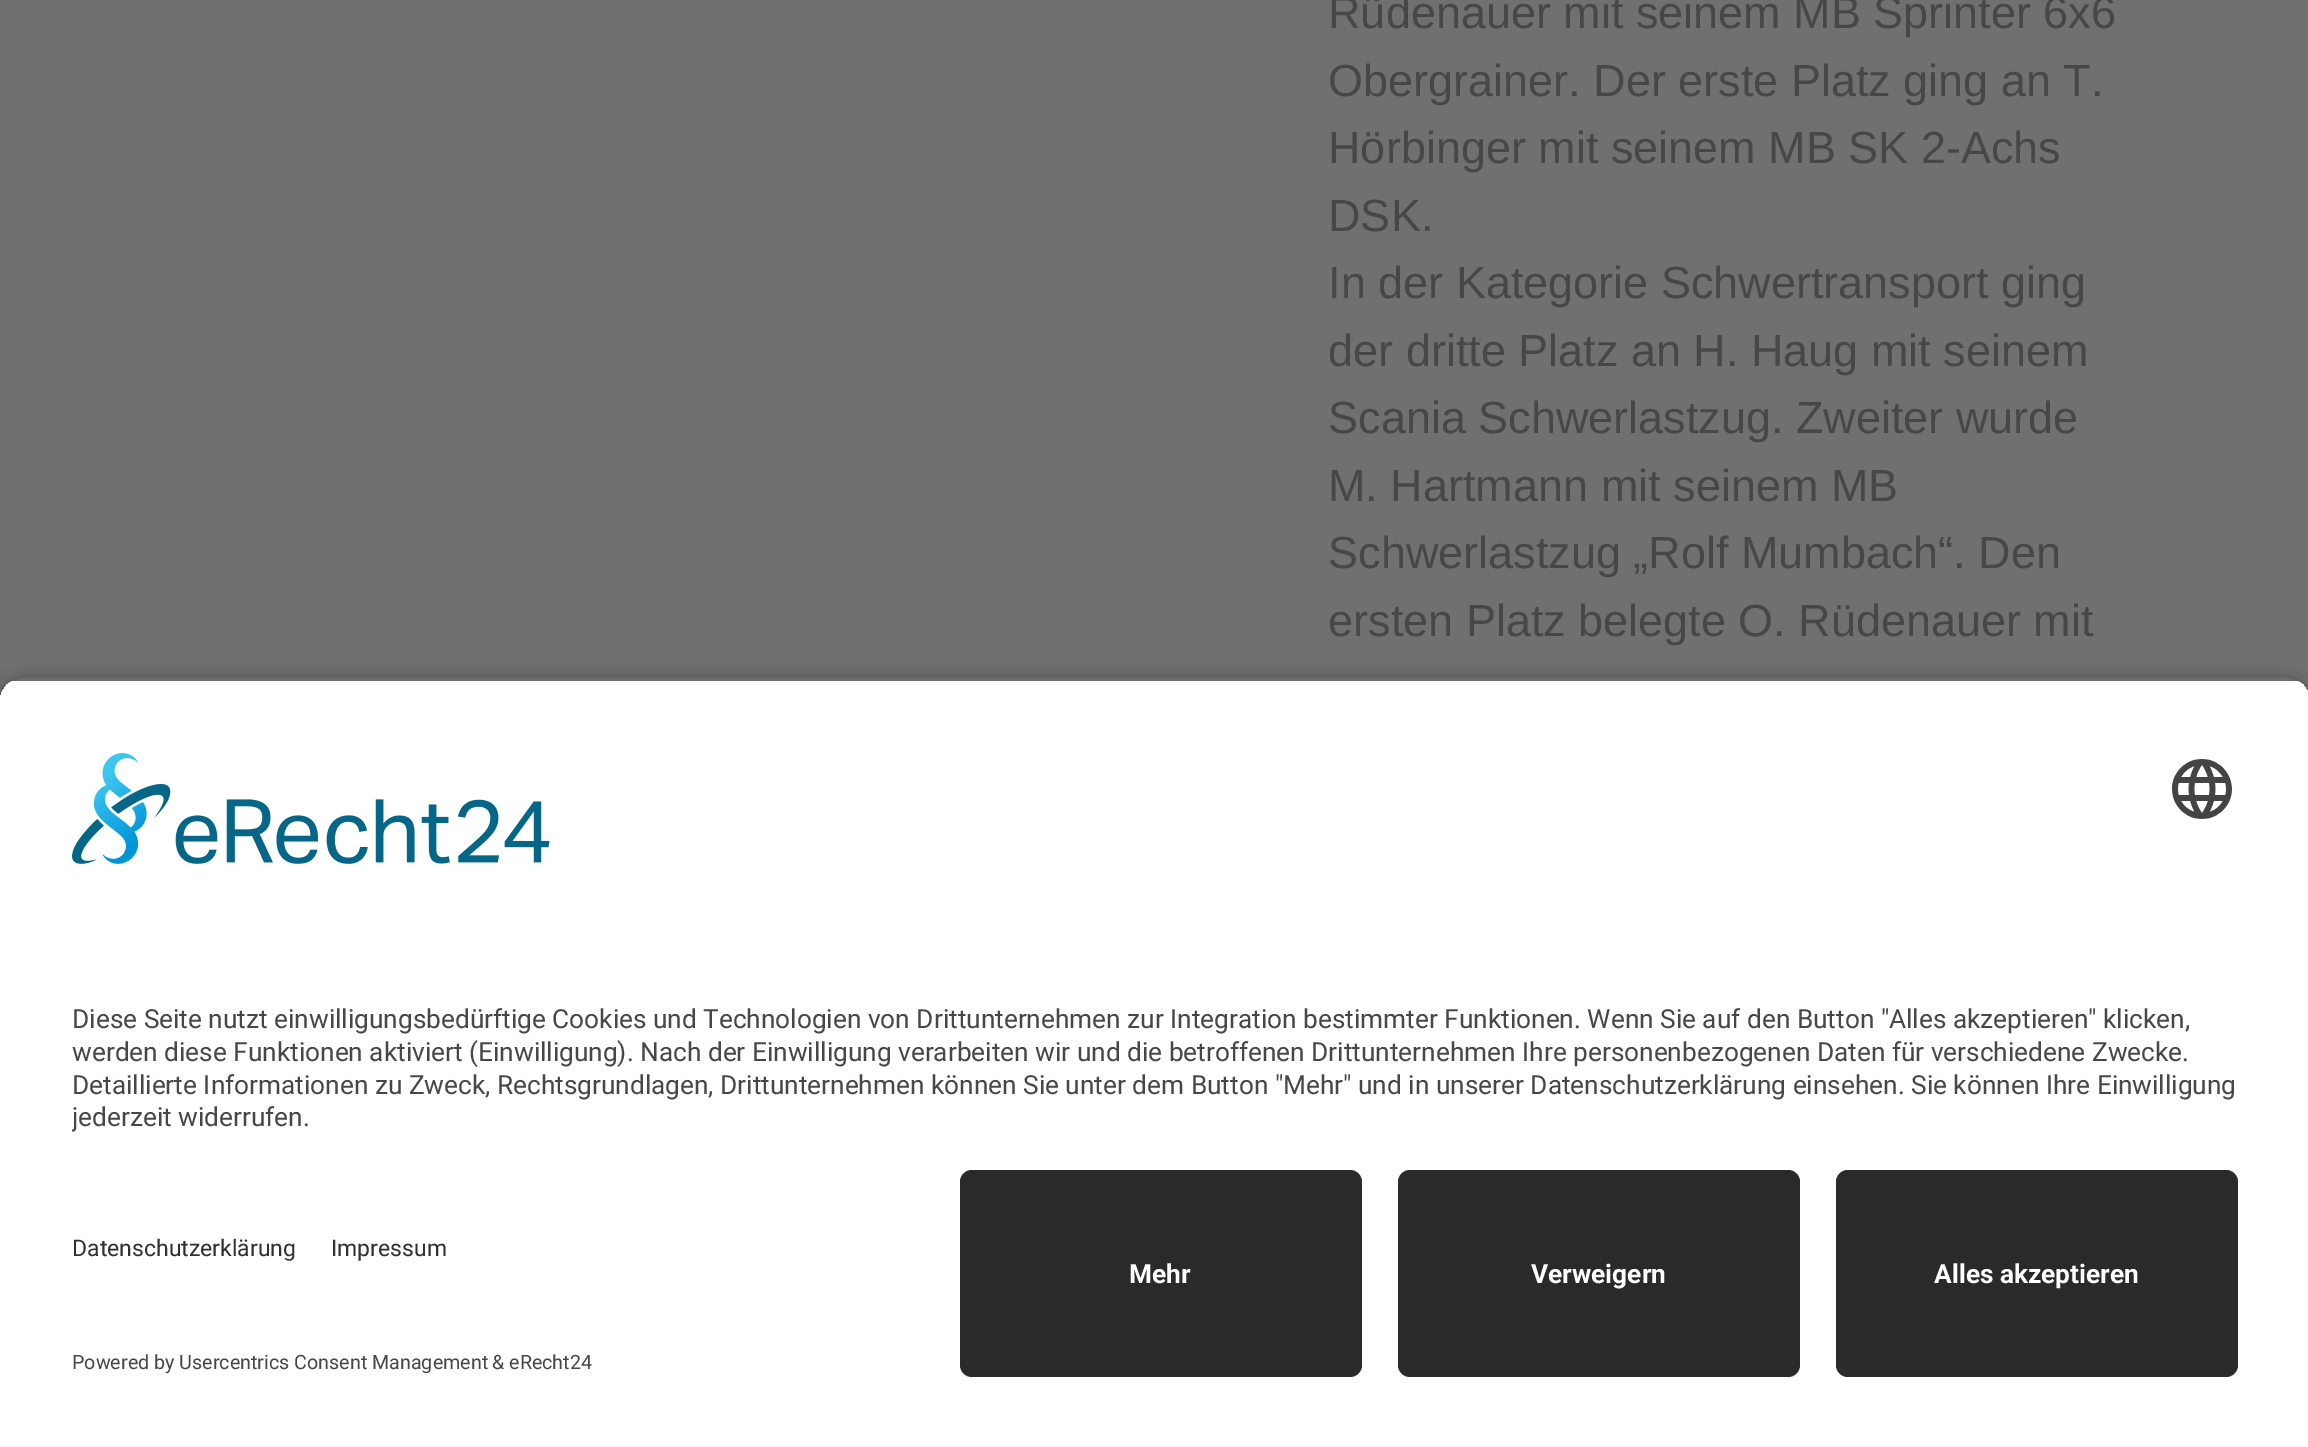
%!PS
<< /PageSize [2308 1447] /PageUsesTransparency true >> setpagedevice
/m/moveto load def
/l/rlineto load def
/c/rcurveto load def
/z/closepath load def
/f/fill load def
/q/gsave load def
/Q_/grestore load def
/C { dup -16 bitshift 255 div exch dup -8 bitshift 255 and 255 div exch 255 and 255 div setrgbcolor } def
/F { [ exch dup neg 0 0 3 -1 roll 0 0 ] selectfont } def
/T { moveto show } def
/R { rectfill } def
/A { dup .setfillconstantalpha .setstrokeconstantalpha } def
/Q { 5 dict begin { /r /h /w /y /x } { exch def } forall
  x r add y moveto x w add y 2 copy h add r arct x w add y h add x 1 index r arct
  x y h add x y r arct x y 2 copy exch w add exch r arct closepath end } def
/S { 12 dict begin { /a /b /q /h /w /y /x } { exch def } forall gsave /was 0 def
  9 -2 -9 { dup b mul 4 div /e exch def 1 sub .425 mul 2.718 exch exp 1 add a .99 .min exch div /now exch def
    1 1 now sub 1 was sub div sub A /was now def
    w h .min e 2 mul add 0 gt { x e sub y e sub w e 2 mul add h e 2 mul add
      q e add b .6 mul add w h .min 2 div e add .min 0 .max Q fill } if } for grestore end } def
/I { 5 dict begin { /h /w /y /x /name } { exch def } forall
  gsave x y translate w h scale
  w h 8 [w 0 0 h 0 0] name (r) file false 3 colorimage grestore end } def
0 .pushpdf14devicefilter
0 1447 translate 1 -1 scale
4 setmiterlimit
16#707070 C
0 0 2308 1447 R
/LiberationSans-Regular 45 F
16#474747 C
(Rüdenauer mit seinem MB Sprinter 6x6) 1328 28 T
(Obergrainer. Der erste Platz ging an T.) 1328 96 T
(Hörbinger mit seinem MB SK 2-Achs) 1328 163 T
(DSK.) 1328 231 T
(In der Kategorie Schwertransport ging) 1328 298 T
(der dritte Platz an H. Haug mit seinem) 1328 366 T
(Scania Schwerlastzug. Zweiter wurde) 1328 433 T
(M. Hartmann mit seinem MB) 1328 501 T
(Schwerlastzug „Rolf Mumbach“. Den) 1328 568 T
(ersten Platz belegte O. Rüdenauer mit) 1328 636 T
q
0 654 m 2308 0 l 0 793 l -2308 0 l z 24 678 m 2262 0 l 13.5 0 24 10.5 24 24 c 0 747 l -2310 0 l 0 -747 l 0 -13.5 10.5 -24 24 -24 c z eoclip newpath
16#000000 C
0 687 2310 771 24 10.5 .8 S
Q_
q
24 678 m 2262 0 l 13.5 0 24 10.5 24 24 c 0 444 l -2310 0 l 0 -444 l 0 -13.5 10.5 -24 24 -24 c z clip newpath
16#FFFFFF C
0 681 2308 465 R
Q_
(1.rgb) 72 753 478 111 I
(2.rgb) 2172 759 60 60 I
/Roboto-Regular 26.25 F
(Diese Seite nutzt einwilligungsbedürftige Cookies und Technologien von Drittunternehmen zur Integration bestimmter Funktionen. Wenn Sie auf den Button "Alles akzeptieren" klicken,) 72 1028 T
(werden diese Funktionen aktiviert \(Einwilligung\). Nach der Einwilligung verarbeiten wir und die betroffenen Drittunternehmen Ihre personenbezogenen Daten für verschiedene Zwecke.) 72 1061 T
(Detaillierte Informationen zu Zweck, Rechtsgrundlagen, Drittunternehmen können Sie unter dem Button "Mehr" und in unserer Datenschutzerklärung einsehen. Sie können Ihre Einwilligung) 72 1094 T
q
72 993 2166 153 rectclip
(jederzeit widerrufen.) 72 1126 T
Q_
16#FFFFFF C
0 1146 2308 301 R
/Roboto-Regular 23 F
16#303030 C
(Datenschutzerklärung) 72 1256 T
(Impressum) 331 1256 T
/Roboto-Regular 19.7 F
16#474747 C
(Powered by Usercentrics Consent Management) 72 1369 T
(& eRecht24) 492 1369 T
16#292A2B C
960 1170 402 207 12 Q f
/Roboto-Bold 26.25 F
16#FFFFFF C
(Mehr) 1129 1283 T
16#292A2B C
1398 1170 402 207 12 Q f
16#FFFFFF C
(Verweigern) 1531 1283 T
16#292A2B C
1836 1170 402 207 12 Q f
16#FFFFFF C
(Alles akzeptieren) 1934 1283 T
.poppdf14devicefilter showpage
